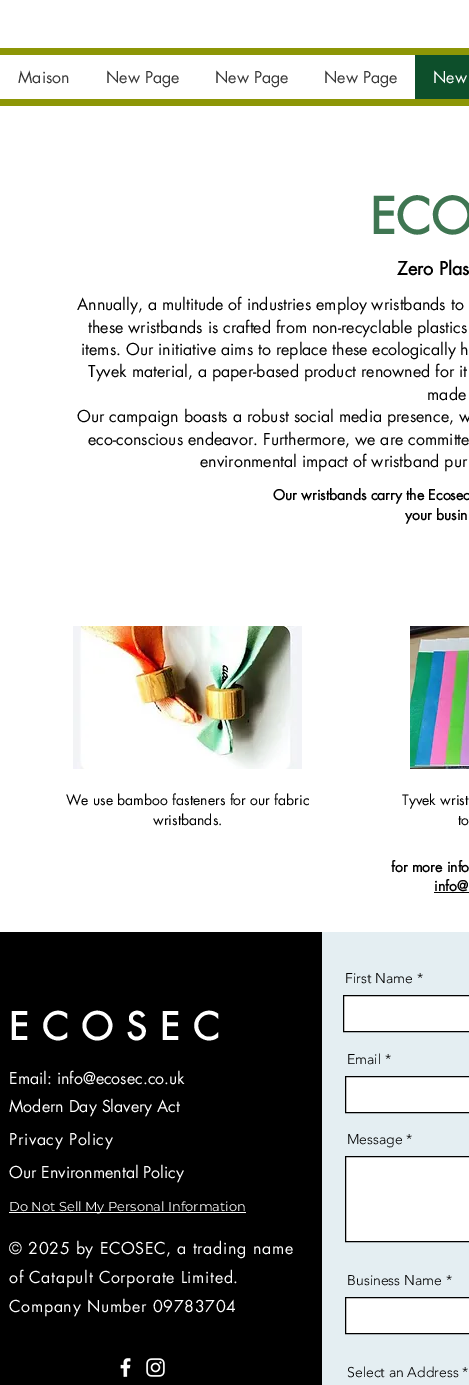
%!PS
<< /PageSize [469 1385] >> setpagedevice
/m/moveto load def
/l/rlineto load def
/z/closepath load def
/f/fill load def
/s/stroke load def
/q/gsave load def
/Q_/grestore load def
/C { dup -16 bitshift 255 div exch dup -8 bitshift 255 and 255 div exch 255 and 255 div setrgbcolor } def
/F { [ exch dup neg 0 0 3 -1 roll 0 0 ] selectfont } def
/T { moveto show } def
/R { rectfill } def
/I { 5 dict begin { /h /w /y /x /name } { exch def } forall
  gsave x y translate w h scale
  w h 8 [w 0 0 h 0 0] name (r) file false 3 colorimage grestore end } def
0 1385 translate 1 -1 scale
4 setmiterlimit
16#FFFFFF C
0 0 469 1385 R
16#8D9606 C
0 48 469 7 R
0 99 469 7 R
/futura-Regular 16 F
16#383838 C
(Maison) 18 83 T
(New Page) 106 83 T
(New Page) 215 83 T
(New Page) 324 83 T
16#0D4F2B C
415 55 54 44 R
16#FFFFFF C
(New) 433 83 T
/futura-Bold 49 F
16#3F7652 C
(ECO) 370 234 T
/futura-Bold 18 F
16#000000 C
(Zero Plas) 397 275 T
/futura-Regular 16 F
(Annually, a multitude of industries employ wristbands to) 77 310 T
(these wristbands is crafted from non-recyclable plastics) 88 333 T
(items. Our initiative aims to replace these ecologically h) 81 355 T
(Tyvek material, a paper-based product renowned for it) 88 377 T
(made) 427 400 T
(Our campaign boasts a robust social media presence, w) 77 422 T
(eco-conscious endeavor. Furthermore, we are committe) 88 445 T
(environmental impact of wristband pur) 200 467 T
/futura-Bold 14 F
(Our wristbands carry the Ecosec) 273 500 T
(your busin) 405 520 T
(1.rgb) 73 626 229 143 I
(2.rgb) 410 626 59 143 I
/futura-Regular 14 F
(We use bamboo fasteners for our fabric) 66 805 T
(wristbands.) 153 825 T
(Tyvek wrist) 402 805 T
(to) 458 825 T
/futura-Bold 14 F
(for more info) 391 872 T
(info@) 434 891 T
434 892 35 1 R
16#E4EEF2 C
322 932 147 453 R
16#000000 C
0 932 322 453 R
/futura-Bold 37 F
16#FFFFFF C
9 1040 m 13 0 (ECOSEC) ashow
/futura-Regular 16 F
(Email: info@ecosec.co.uk) 9 1084 T
(Modern Day Slavery Act) 9 1112 T
9 1145 m .65 0 (Privacy Policy) ashow
(Our Environmental Policy) 9 1178 T
9 1212 237 1 R
/Montserrat-Regular 13 F
(Do Not Sell My Personal Information) 9 1211 T
/futura-Regular 16 F
9 1254 m .65 0 (© 2025 by ECOSEC, a trading name) ashow
9 1283 m .65 0 (of Catapult Corporate Limited.) ashow
9 1312 m .65 0 (Company Number 09783704) ashow
(3.rgb) 120 1358 11 19 I
(4.rgb) 146 1358 19 19 I
/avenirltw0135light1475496-Light 14 F
16#000000 C
(First Name *) 345 983 T
16#FFFFFF C
343.5 995.5 m 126 0 l 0 36 l -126 0 l z q f Q_
16#000000 C
s
(Email *) 347 1064 T
16#FFFFFF C
345.5 1076.5 m 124 0 l 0 36 l -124 0 l z q f Q_
16#000000 C
s
(Message *) 347 1144 T
16#FFFFFF C
345.5 1156.5 m 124 0 l 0 85 l -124 0 l z q f Q_
16#000000 C
s
(Business Name *) 347 1285 T
16#FFFFFF C
345.5 1297.5 m 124 0 l 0 36 l -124 0 l z q f Q_
16#000000 C
s
(Select an Address *) 347 1377 T
showpage
